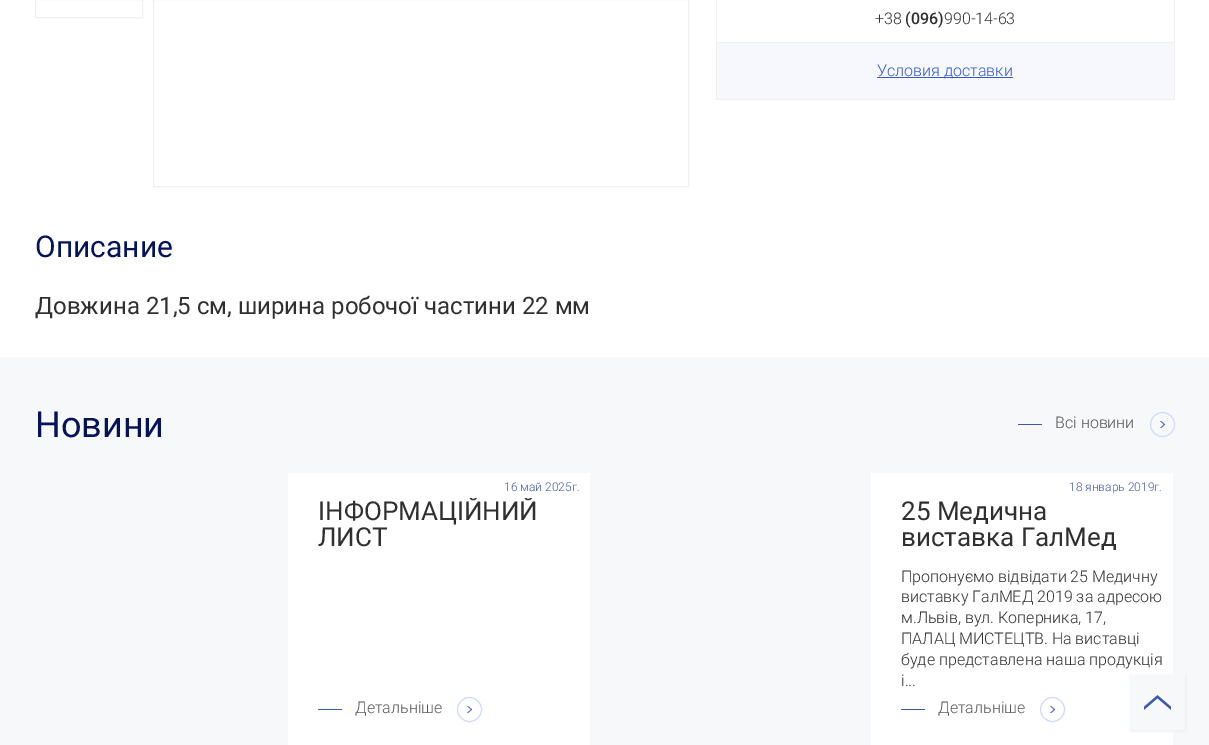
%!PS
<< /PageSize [1209 745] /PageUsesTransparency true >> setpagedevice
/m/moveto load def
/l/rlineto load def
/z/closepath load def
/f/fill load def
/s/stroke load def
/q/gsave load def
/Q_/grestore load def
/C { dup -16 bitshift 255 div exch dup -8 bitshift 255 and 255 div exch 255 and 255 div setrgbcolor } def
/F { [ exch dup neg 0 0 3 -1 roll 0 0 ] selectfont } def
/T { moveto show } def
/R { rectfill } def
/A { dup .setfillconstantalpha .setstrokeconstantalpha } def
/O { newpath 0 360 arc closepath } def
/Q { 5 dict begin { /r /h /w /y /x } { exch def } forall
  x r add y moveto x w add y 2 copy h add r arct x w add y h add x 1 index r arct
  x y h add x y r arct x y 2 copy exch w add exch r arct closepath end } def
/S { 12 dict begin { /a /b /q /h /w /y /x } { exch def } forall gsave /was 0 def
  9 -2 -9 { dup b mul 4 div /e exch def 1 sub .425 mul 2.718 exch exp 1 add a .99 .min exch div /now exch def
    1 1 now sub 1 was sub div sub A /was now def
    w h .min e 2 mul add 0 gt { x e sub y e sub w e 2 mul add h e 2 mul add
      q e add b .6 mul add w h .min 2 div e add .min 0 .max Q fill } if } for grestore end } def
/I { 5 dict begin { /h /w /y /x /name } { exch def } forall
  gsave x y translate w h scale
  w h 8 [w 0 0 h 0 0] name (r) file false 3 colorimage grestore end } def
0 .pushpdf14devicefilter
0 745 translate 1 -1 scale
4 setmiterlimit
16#FFFFFF C
0 0 1209 745 R
16#F0F0F0 C
35.5 -.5 107 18 rectstroke
153.5 -.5 535 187 rectstroke
1175 -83 m 0 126 l -1 -1 l 0 -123 l z f
716 42 459 1 R
716 43 m 0 -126 l 1 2 l 0 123 l z f
/Roboto-Light 16 F
16#303030 C
(+38) 875 24 T
/Roboto-Medium 16 F
(\(096\)) 905 24 T
/Roboto-Light 16 F
(990-14-63) 944 24 T
16#F6F8FE C
717 43 457 56 R
16#F0F0F0 C
1174 43 1 57 R
716 99 459 1 R
716 43 1 57 R
16#345BC7 C
877 77 136 1 R
(Условия доставки) 877 76 T
/Roboto-Regular 30 F
16#05135D C
(Описание) 35 257 T
/Roboto-Regular 24 F
16#303030 C
(Довжина 21,5 см, ширина робочої частини 22 мм) 35 314 T
16#F6F8F9 C
0 357 1209 388 R
/Roboto-Regular 36 F
16#05135D C
(Новини) 35 437 T
16#3C59AB C
1018 424 24 1 R
/Roboto-Light 16 F
16#575757 C
(Всі новини) 1055 428 T
(1.rgb) 1160 421 5 7 I
16#CFDBFE C
1162.5 424.5 12 O s
16#FFFFFF C
288 473 302 272 R
/Roboto-Light 12 F
16#3C59AB C
(16 май 2025г.) 504 491 T
q
318 498 262 52 rectclip
/Roboto-Regular 26 F
16#303030 C
(ІНФОРМАЦІЙНИЙ) 318 520 T
Q_
/Roboto-Regular 26 F
16#303030 C
(ЛИСТ) 318 546 T
16#3C59AB C
318 709 24 1 R
/Roboto-Light 16 F
16#575757 C
(Детальніше) 355 713 T
(2.rgb) 467 706 5 7 I
16#CFDBFE C
469.5 709.5 12 O s
16#FFFFFF C
871 473 302 272 R
/Roboto-Light 12 F
16#3C59AB C
(18 январь 2019г.) 1069 491 T
/Roboto-Regular 26 F
16#303030 C
(25 Медична) 901 520 T
q
901 498 262 52 rectclip
(виставка ГалМед) 901 546 T
Q_
/Roboto-Light 16 F
(Пропонуємо відвідати 25 Медичну) 901 582 T
(виставку ГалМЕД 2019 за адресою) 901 602 T
(м.Львів, вул. Коперника, 17,) 901 623 T
(ПАЛАЦ МИСТЕЦТВ. На виставці) 901 644 T
(буде представлена наша продукція) 901 665 T
(і...) 901 686 T
16#3C59AB C
901 709 24 1 R
16#575757 C
(Детальніше) 938 713 T
(2.rgb) 1050 706 5 7 I
16#CFDBFE C
1052.5 709.5 12 O s
16#EAECF2 C
1131 676 55 55 0 1.5 1 S
16#F6F8F9 C
1130 675 55 55 R
(3.rgb) 1144 695 27 15 I
.poppdf14devicefilter showpage
